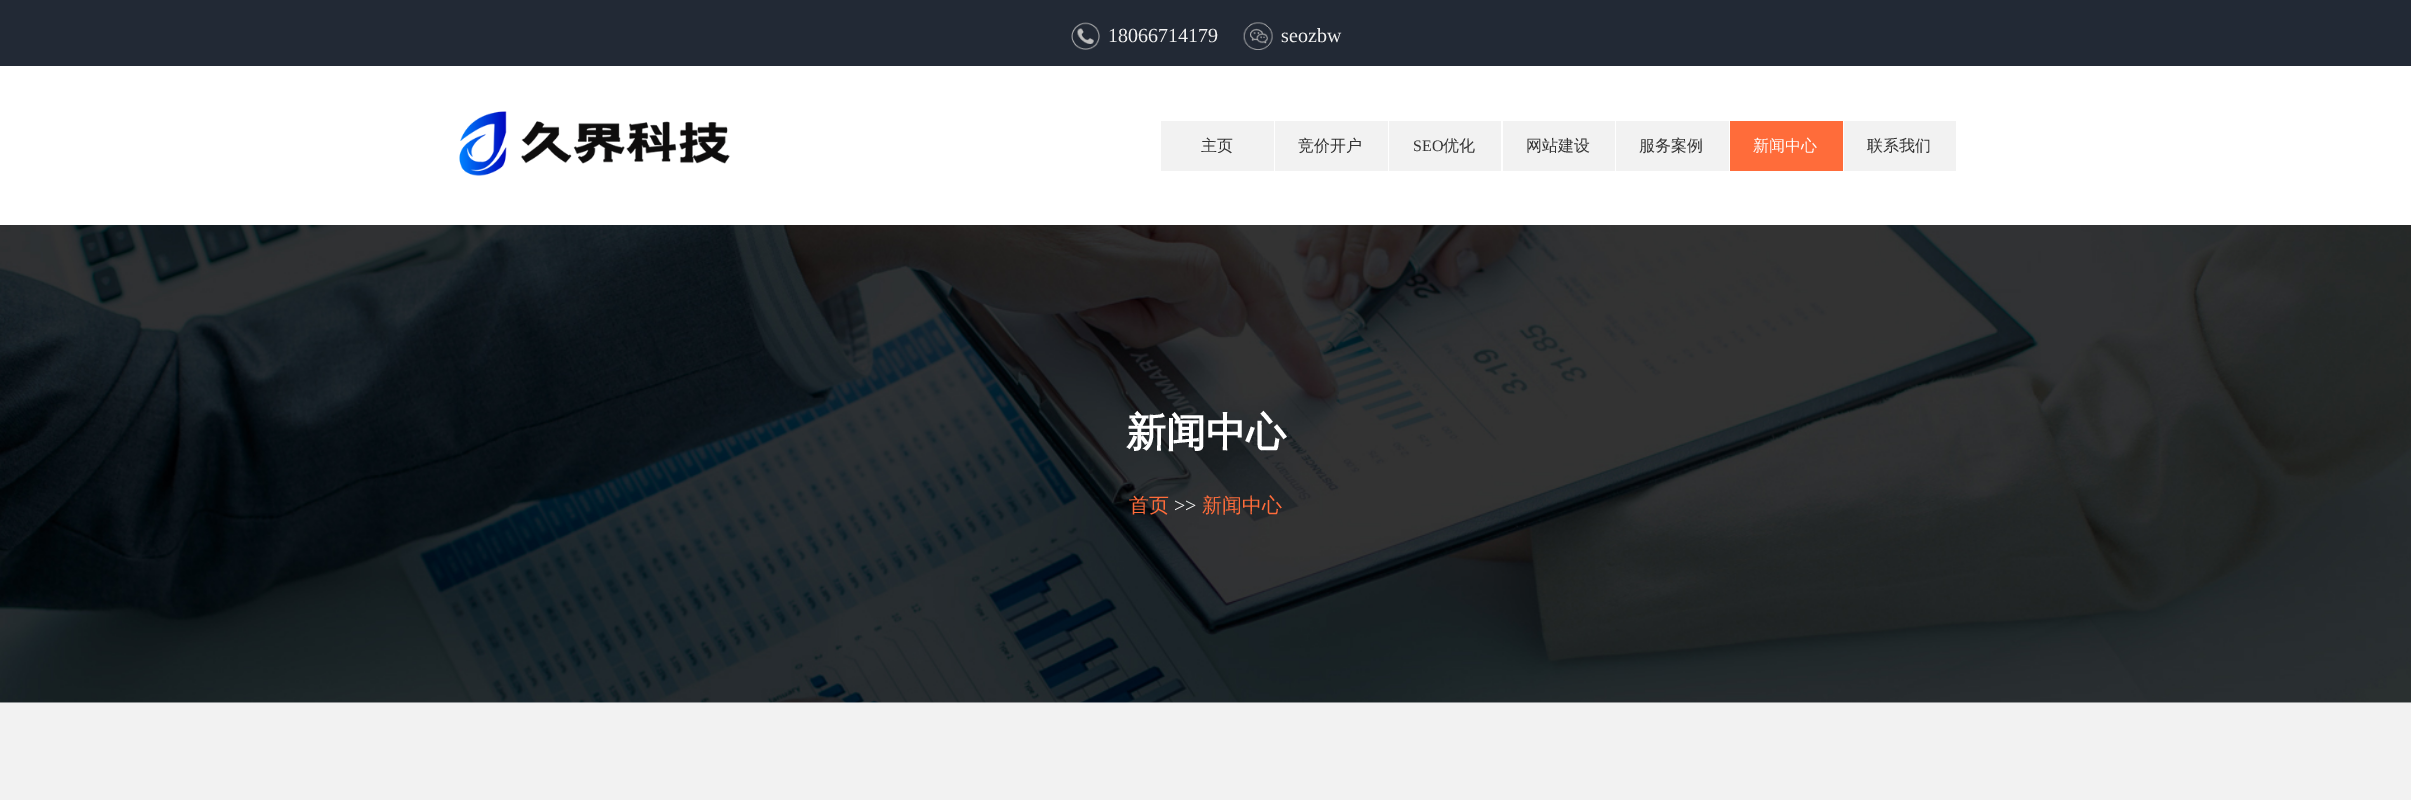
%!PS
<< /PageSize [2411 800] >> setpagedevice
/C { dup -16 bitshift 255 div exch dup -8 bitshift 255 and 255 div exch 255 and 255 div setrgbcolor } def
/F { [ exch dup neg 0 0 3 -1 roll 0 0 ] selectfont } def
/T { moveto show } def
/R { rectfill } def
/I { 5 dict begin { /h /w /y /x /name } { exch def } forall
  gsave x y translate w h scale
  w h 8 [w 0 0 h 0 0] name (r) file false 3 colorimage grestore end } def
0 800 translate 1 -1 scale
4 setmiterlimit
16#FFFFFF C
0 0 2411 800 R
16#222935 C
0 0 2411 66 R
(1.rgb) 1071 22 29 28 I
/LiberationSerif-Regular 20 F
16#F2F2F2 C
(18066714179) 1108 42 T
(2.rgb) 1243 22 30 28 I
(seozbw) 1281 42 T
(3.rgb) 459 111 271 65 I
1161 121 113 50 R
/WenQuanYiZenHei-Medium 16 F
16#333333 C
(主页) 1201 151 T
16#F2F2F2 C
1275 121 113 50 R
16#333333 C
(竞价开户) 1298 151 T
16#F2F2F2 C
1389 121 112 50 R
/LiberationSerif-Regular 16 F
16#333333 C
(SEO) 1413 151 T
/WenQuanYiZenHei-Medium 16 F
(优化) 1443 151 T
16#F2F2F2 C
1503 121 112 50 R
16#333333 C
(网站建设) 1526 151 T
16#F2F2F2 C
1616 121 113 50 R
16#333333 C
(服务案例) 1639 151 T
16#FF6C3A C
1730 121 113 50 R
16#FFFFFF C
(新闻中心) 1753 151 T
16#F2F2F2 C
1844 121 112 50 R
16#333333 C
(联系我们) 1867 151 T
(4.rgb) 0 225 2411 478 I
/WenQuanYiZenHei-Bold 40 F
16#FFFFFF C
(新闻中心) 1126 446 T
/WenQuanYiZenHei-Medium 20 F
16#FF6C3A C
(首页) 1129 512 T
/LiberationSerif-Regular 20 F
16#FFFFFF C
(>>) 1174 512 T
/WenQuanYiZenHei-Medium 20 F
16#FF6C3A C
(新闻中心) 1202 512 T
16#F2F2F2 C
0 703 2411 97 R
showpage
